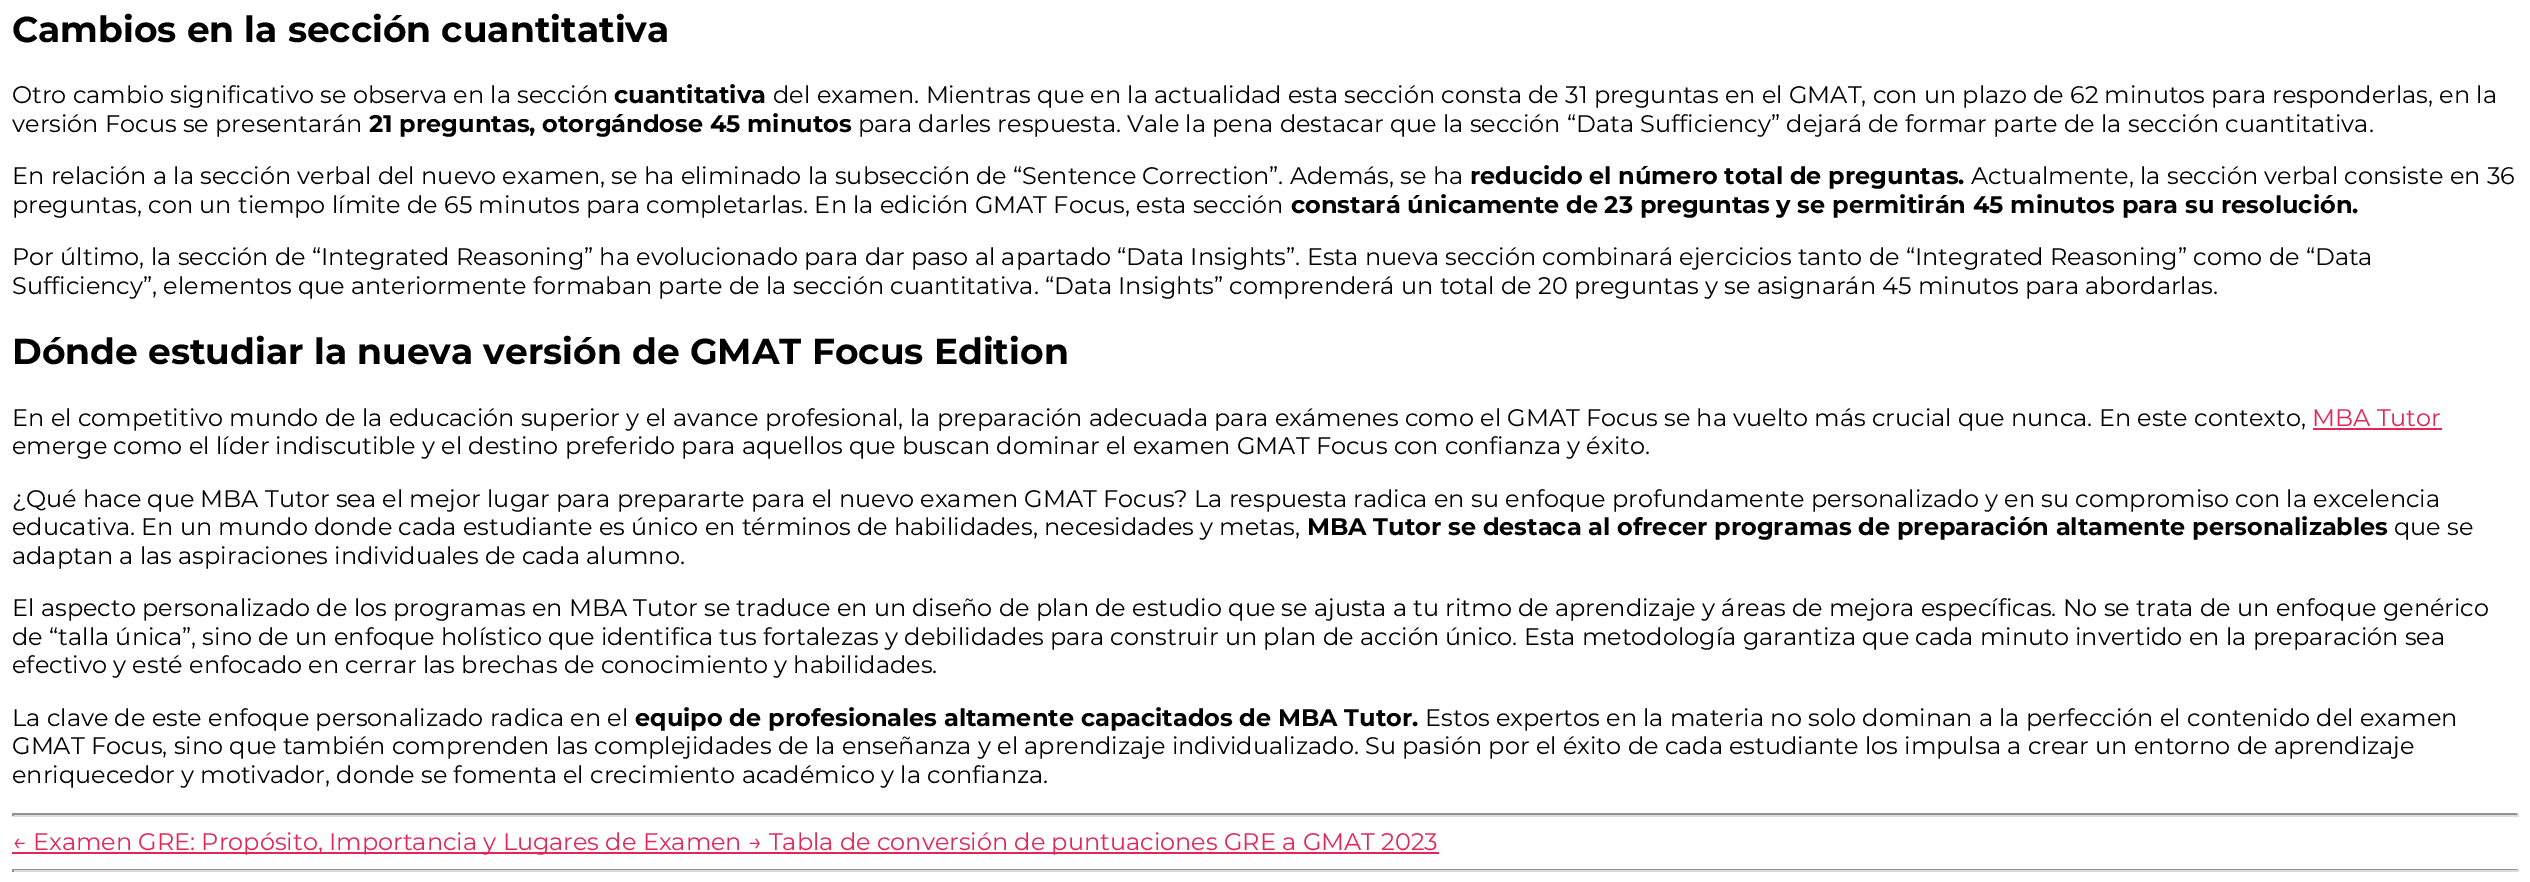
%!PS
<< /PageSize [2530 882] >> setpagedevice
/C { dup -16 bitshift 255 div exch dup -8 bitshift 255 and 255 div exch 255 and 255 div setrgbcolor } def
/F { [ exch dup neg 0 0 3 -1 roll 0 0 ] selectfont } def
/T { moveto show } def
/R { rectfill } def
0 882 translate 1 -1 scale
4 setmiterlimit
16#FFFFFF C
0 0 2530 882 R
/Montserrat-Bold 36 F
16#000000 C
(Cambios en la sección cuantitativa) 12 42 T
/Montserrat-Regular 24 F
(Otro cambio significativo se observa en la sección) 12 103 T
/Montserrat-Bold 24 F
(cuantitativa) 614 103 T
/Montserrat-Regular 24 F
(del examen. Mientras que en la actualidad esta sección consta de 31 preguntas en el GMAT, con un plazo de 62 minutos para responderlas, en la) 773 103 T
(versión Focus se presentarán) 12 132 T
/Montserrat-Bold 24 F
(21 preguntas, otorgándose 45 minutos) 369 132 T
/Montserrat-Regular 24 F
(para darles respuesta. Vale la pena destacar que la sección “Data Sufficiency” dejará de formar parte de la sección cuantitativa.) 858 132 T
(En relación a la sección verbal del nuevo examen, se ha eliminado la subsección de “Sentence Correction”. Además, se ha) 12 184 T
/Montserrat-Bold 24 F
(reducido el número total de preguntas.) 1470 184 T
/Montserrat-Regular 24 F
(Actualmente, la sección verbal consiste en 36) 1971 184 T
(preguntas, con un tiempo límite de 65 minutos para completarlas. En la edición GMAT Focus, esta sección) 12 213 T
/Montserrat-Bold 24 F
(constará únicamente de 23 preguntas y se permitirán 45 minutos para su resolución.) 1291 213 T
/Montserrat-Regular 24 F
(Por último, la sección de “Integrated Reasoning” ha evolucionado para dar paso al apartado “Data Insights”. Esta nueva sección combinará ejercicios tanto de “Integrated Reasoning” como de “Data) 12 265 T
(Sufficiency”, elementos que anteriormente formaban parte de la sección cuantitativa. “Data Insights” comprenderá un total de 20 preguntas y se asignarán 45 minutos para abordarlas.) 12 294 T
/Montserrat-Bold 36 F
(Dónde estudiar la nueva versión de GMAT Focus Edition) 12 364 T
/Montserrat-Regular 24 F
(En el competitivo mundo de la educación superior y el avance profesional, la preparación adecuada para exámenes como el GMAT Focus se ha vuelto más crucial que nunca. En este contexto,) 12 426 T
16#E22658 C
(MBA Tutor) 2312 426 T
2313 428 129 2 R
16#000000 C
(emerge como el líder indiscutible y el destino preferido para aquellos que buscan dominar el examen GMAT Focus con confianza y éxito.) 12 454 T
(¿Qué hace que MBA Tutor sea el mejor lugar para prepararte para el nuevo examen GMAT Focus? La respuesta radica en su enfoque profundamente personalizado y en su compromiso con la excelencia) 12 507 T
(educativa. En un mundo donde cada estudiante es único en términos de habilidades, necesidades y metas,) 12 535 T
/Montserrat-Bold 24 F
(MBA Tutor se destaca al ofrecer programas de preparación altamente personalizables) 1307 535 T
/Montserrat-Regular 24 F
(que se) 2394 535 T
(adaptan a las aspiraciones individuales de cada alumno.) 12 564 T
(El aspecto personalizado de los programas en MBA Tutor se traduce en un diseño de plan de estudio que se ajusta a tu ritmo de aprendizaje y áreas de mejora específicas. No se trata de un enfoque genérico) 12 616 T
(de “talla única”, sino de un enfoque holístico que identifica tus fortalezas y debilidades para construir un plan de acción único. Esta metodología garantiza que cada minuto invertido en la preparación sea) 12 645 T
(efectivo y esté enfocado en cerrar las brechas de conocimiento y habilidades.) 12 673 T
(La clave de este enfoque personalizado radica en el) 12 726 T
/Montserrat-Bold 24 F
(equipo de profesionales altamente capacitados de MBA Tutor.) 635 726 T
/Montserrat-Regular 24 F
(Estos expertos en la materia no solo dominan a la perfección el contenido del examen) 1425 726 T
(GMAT Focus, sino que también comprenden las complejidades de la enseñanza y el aprendizaje individualizado. Su pasión por el éxito de cada estudiante los impulsa a crear un entorno de aprendizaje) 12 754 T
(enriquecedor y motivador, donde se fomenta el crecimiento académico y la confianza.) 12 783 T
16#929292 C
12 813 2507 2 R
16#DBDBDB C
2517 813 2 3 R
12 815 2507 2 R
16#929292 C
12 813 2 3 R
16#E22658 C
12 852 1427 2 R
(← Examen GRE: Propósito, Importancia y Lugares de Examen → Tabla de conversión de puntuaciones GRE a GMAT 2023) 12 850 T
16#929292 C
12 869 2507 1 R
16#DBDBDB C
2517 869 2 3 R
12 870 2507 2 R
16#929292 C
12 869 2 3 R
showpage
